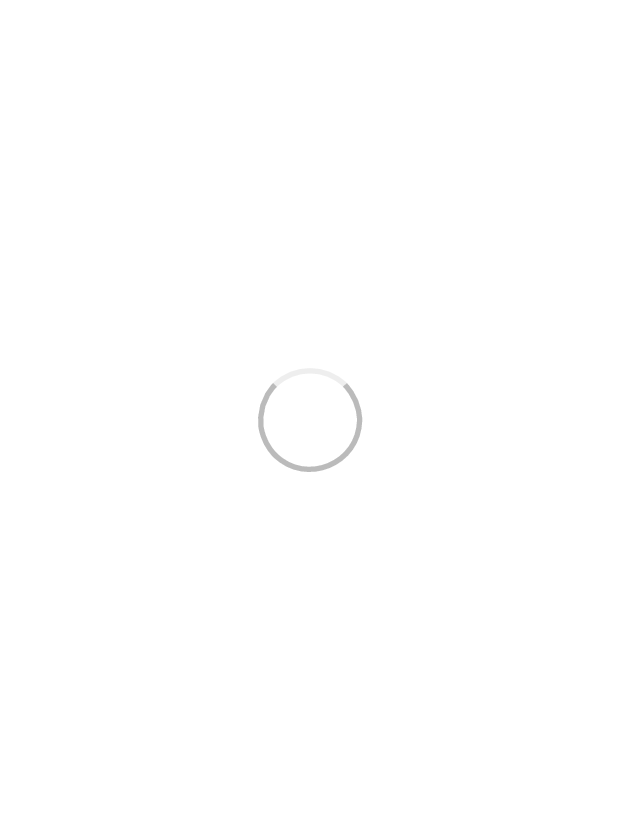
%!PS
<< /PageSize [619 839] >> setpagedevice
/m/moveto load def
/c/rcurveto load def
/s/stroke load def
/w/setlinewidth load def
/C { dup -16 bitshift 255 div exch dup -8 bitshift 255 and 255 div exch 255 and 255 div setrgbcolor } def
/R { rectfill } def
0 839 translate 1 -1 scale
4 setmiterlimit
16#FFFFFF C
0 0 619 839 R
16#EEEEEE C
5 w
275 385 m 19 -19 51 -19 70 0 c s
16#BBBBBB C
345 385 m 9 9.5 14.5 22 14.5 35 c 0 43.5 -53.5 66 -84.5 35 c -7 -7 -11.5 -16 -13.5 -25.5 c -3 -16 2 -33 13.5 -44.5 c s
showpage
